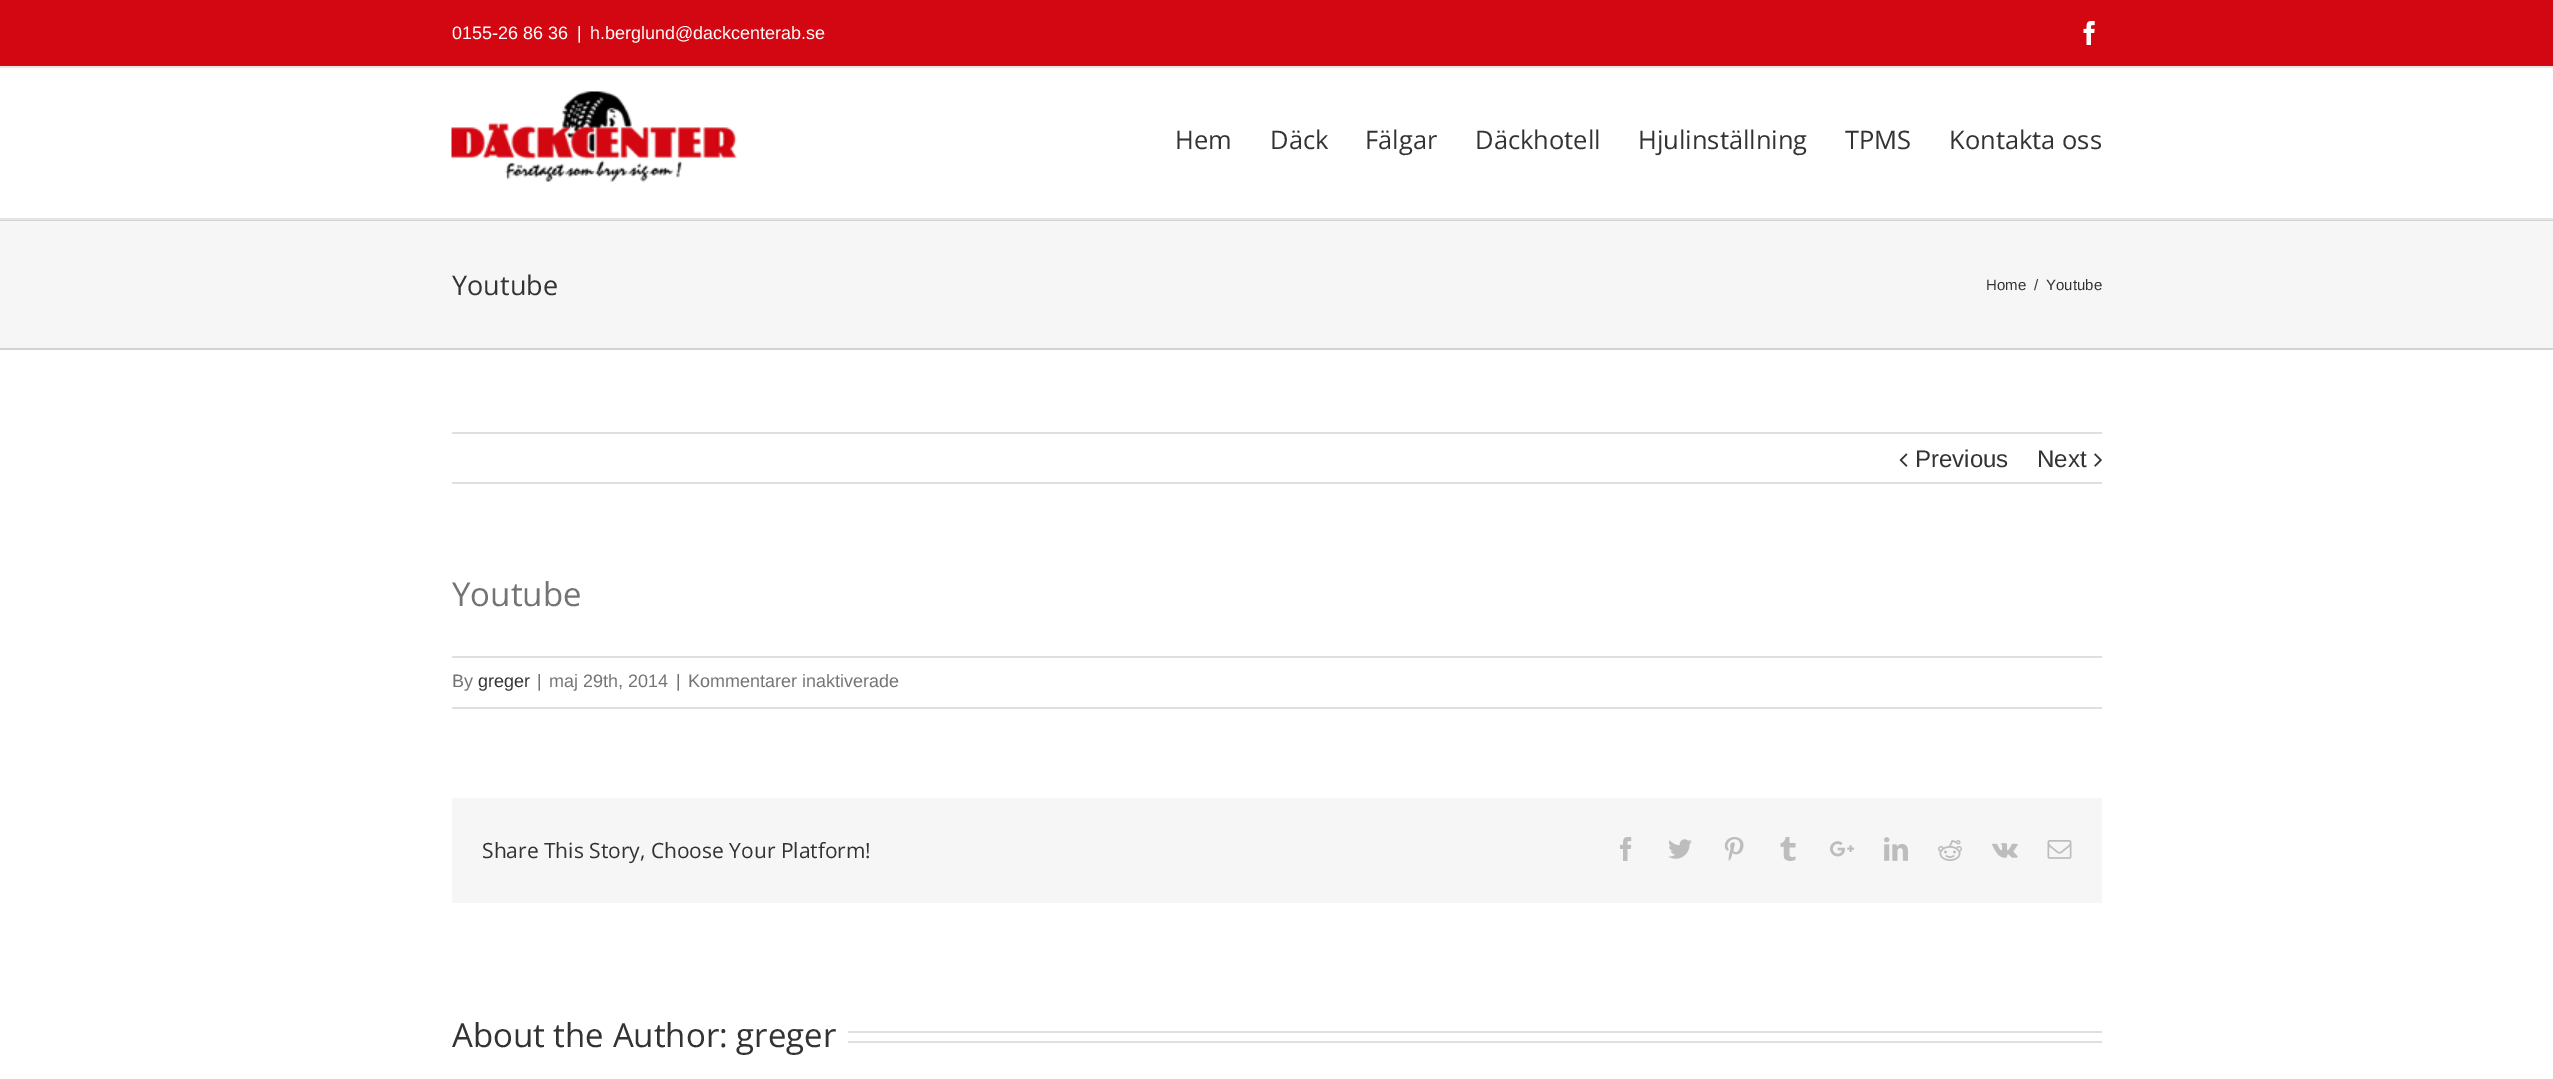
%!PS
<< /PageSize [2553 1079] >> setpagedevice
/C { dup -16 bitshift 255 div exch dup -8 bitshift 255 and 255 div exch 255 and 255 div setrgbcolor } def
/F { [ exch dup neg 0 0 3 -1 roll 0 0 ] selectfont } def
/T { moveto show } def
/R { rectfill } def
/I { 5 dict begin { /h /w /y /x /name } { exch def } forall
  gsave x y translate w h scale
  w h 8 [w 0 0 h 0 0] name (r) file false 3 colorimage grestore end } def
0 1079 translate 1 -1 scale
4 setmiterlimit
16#FFFFFF C
0 0 2553 1079 R
16#D30711 C
0 0 2553 66 R
16#E5E5E5 C
0 66 2553 2 R
/LiberationSans-Regular 18 F
16#FFFFFF C
(0155-26 86 36) 452 39 T
(|) 577 39 T
(h.berglund@dackcenterab.se) 590 39 T
(1.rgb) 2083 21 12 24 I
16#E5E5E5 C
0 218 2553 2 R
(2.rgb) 451 91 286 91 I
/OpenSans-Regular 25.5 F
16#333333 C
(Hem) 1175 149 T
(Däck) 1270 149 T
(Fälgar) 1365 149 T
(Däckhotell) 1475 149 T
(Hjulinställning) 1638 149 T
(TPMS) 1845 149 T
(Kontakta oss) 1949 149 T
16#F6F6F6 C
0 221 2553 127 R
16#D2D3D4 C
0 220 2553 1 R
0 348 2553 2 R
/OpenSans-Regular 27 F
16#333333 C
(Youtube) 452 295 T
/LiberationSans-Regular 15 F
(Home) 1986 290 T
(/) 2034 290 T
(Youtube) 2046 290 T
16#E0DEDE C
452 432 1650 2 R
452 482 1650 2 R
(3.rgb) 1899 453 9 14 I
/LiberationSans-Regular 24 F
16#333333 C
(Previous) 1915 467 T
(Next) 2037 467 T
(4.rgb) 2094 453 8 14 I
/OpenSans-Regular 33 F
16#747474 C
(Youtube) 452 606 T
16#E0DEDE C
452 656 1650 2 R
452 707 1650 2 R
/LiberationSans-Regular 18 F
16#747474 C
(By) 452 687 T
16#333333 C
(greger) 478 687 T
16#747474 C
(|) 537 687 T
(maj 29th, 2014) 549 687 T
(|) 676 687 T
(Kommentarer inaktiverade) 688 687 T
16#F6F6F6 C
452 798 1650 105 R
/OpenSans-Regular 21 F
16#333333 C
(Share This Story, Choose Your Platform!) 482 858 T
(5.rgb) 1620 837 12 24 I
(6.rgb) 1668 839 24 20 I
(7.rgb) 1724 837 20 24 I
(8.rgb) 1780 837 16 24 I
(9.rgb) 1830 841 24 16 I
(10.rgb) 1884 837 24 24 I
(11.rgb) 1938 840 24 21 I
(12.rgb) 1992 843 26 15 I
(13.rgb) 2047 840 25 19 I
/OpenSans-Regular 33 F
(About the Author: greger) 452 1047 T
16#E0DEDE C
848 1031 1254 2 R
848 1041 1254 2 R
showpage
